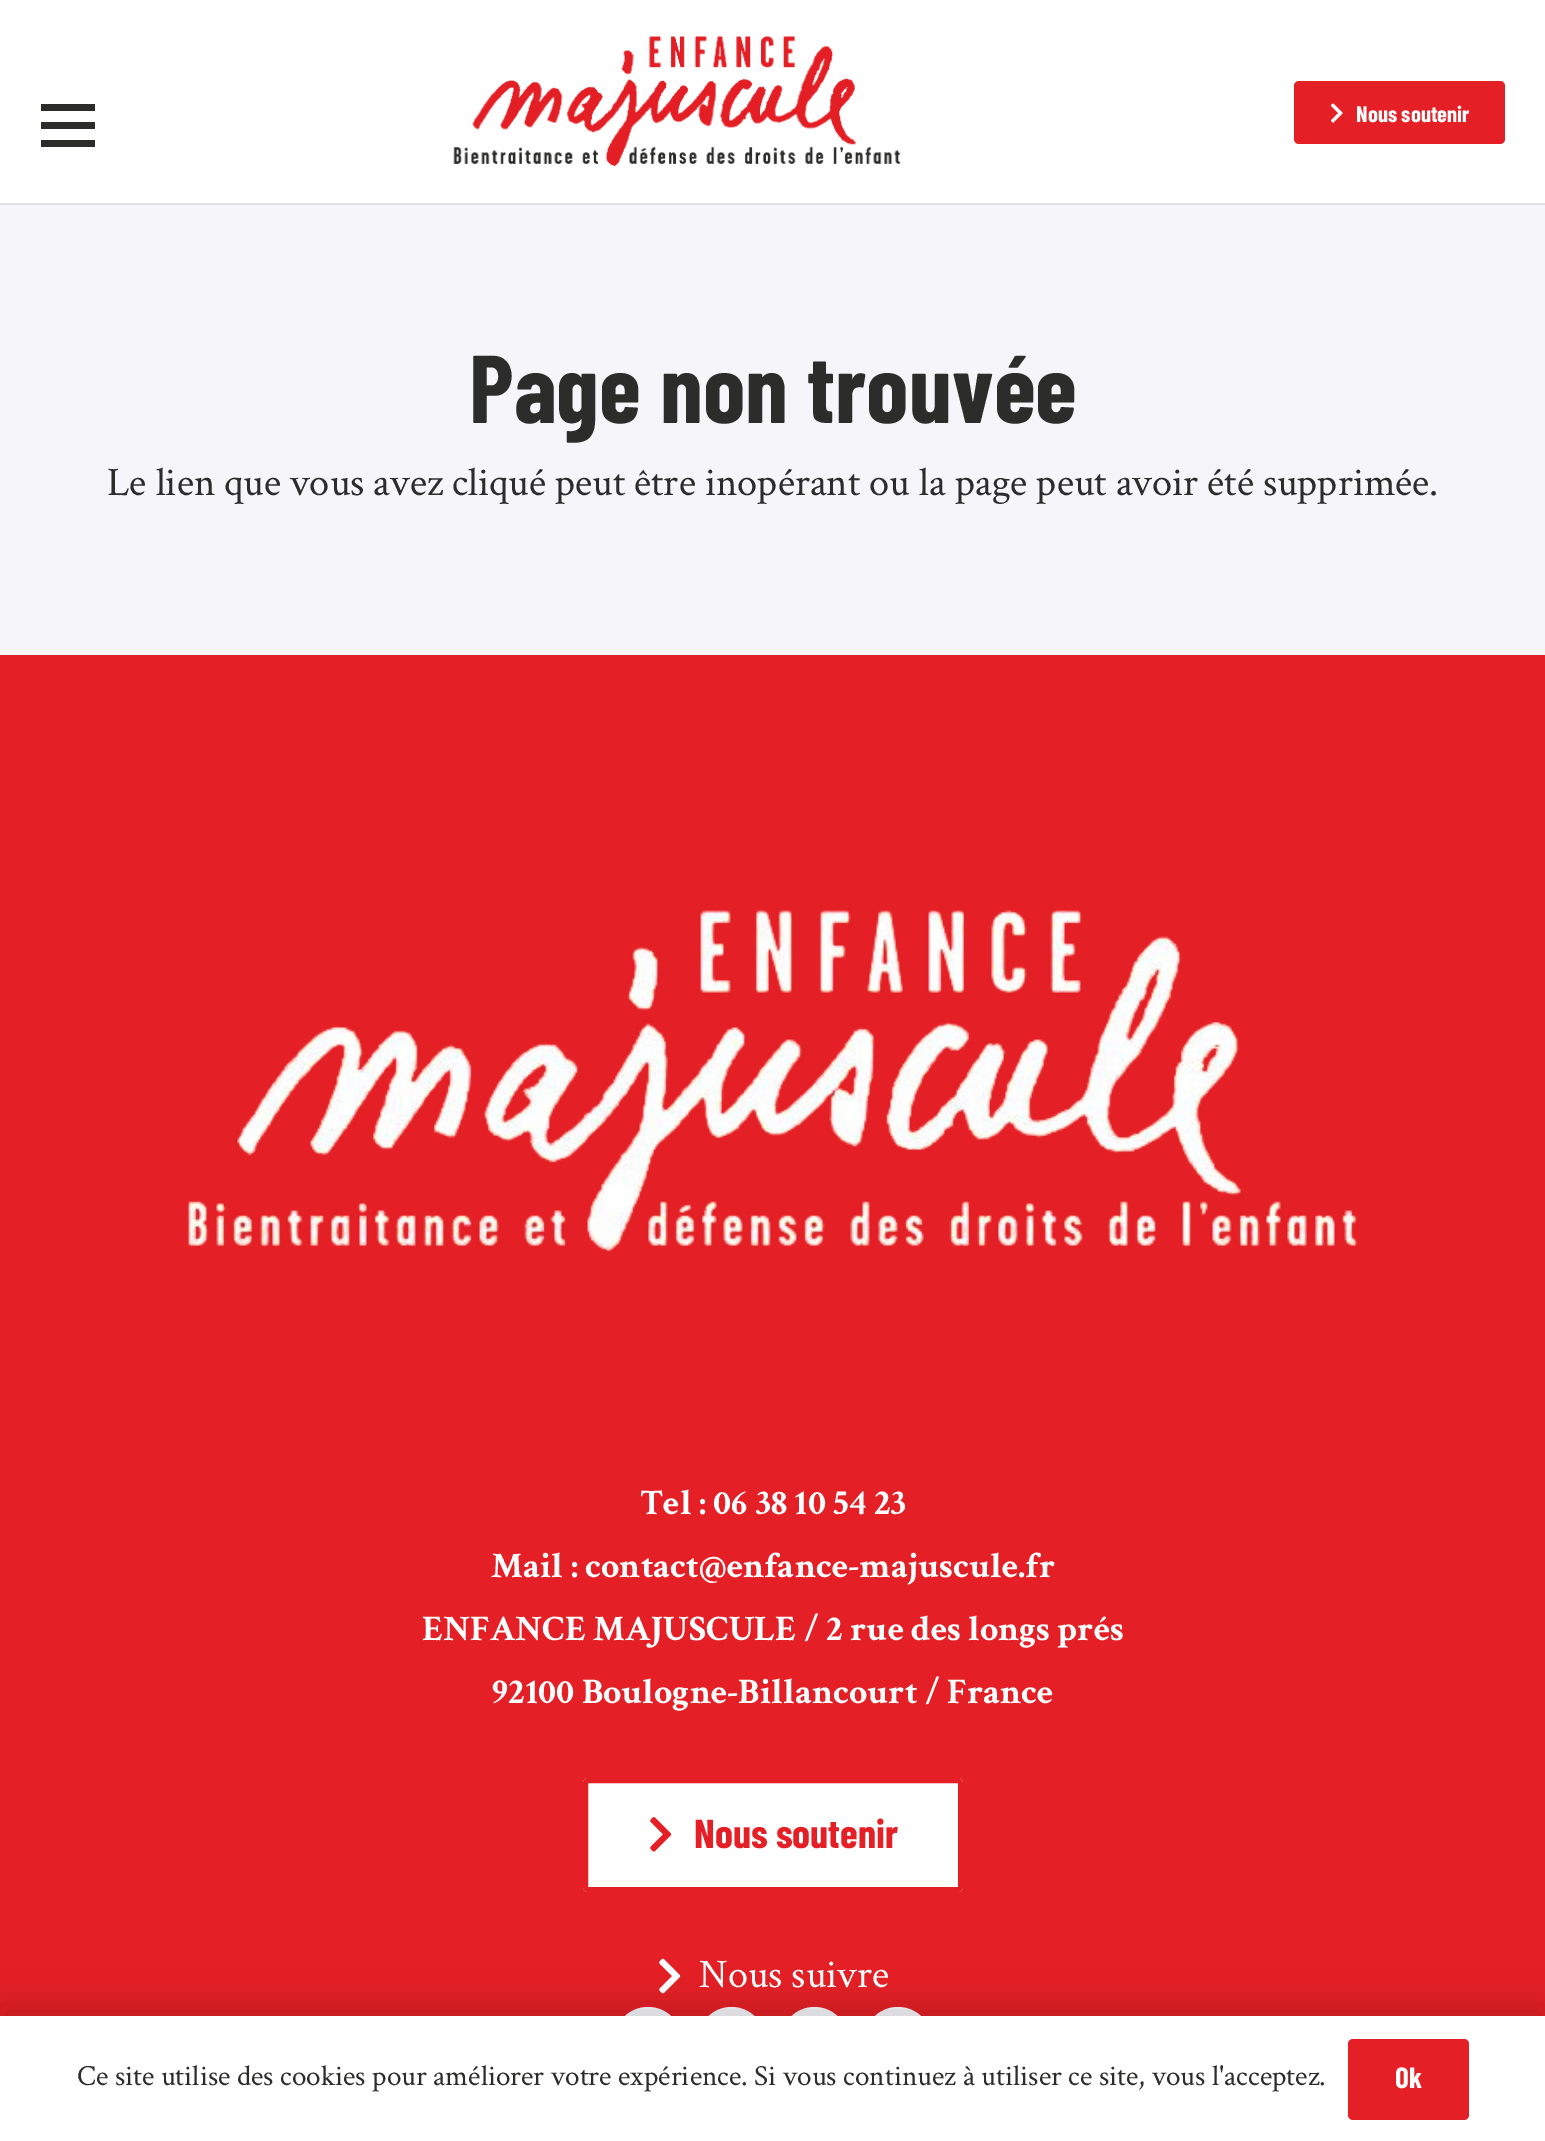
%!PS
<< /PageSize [1545 2141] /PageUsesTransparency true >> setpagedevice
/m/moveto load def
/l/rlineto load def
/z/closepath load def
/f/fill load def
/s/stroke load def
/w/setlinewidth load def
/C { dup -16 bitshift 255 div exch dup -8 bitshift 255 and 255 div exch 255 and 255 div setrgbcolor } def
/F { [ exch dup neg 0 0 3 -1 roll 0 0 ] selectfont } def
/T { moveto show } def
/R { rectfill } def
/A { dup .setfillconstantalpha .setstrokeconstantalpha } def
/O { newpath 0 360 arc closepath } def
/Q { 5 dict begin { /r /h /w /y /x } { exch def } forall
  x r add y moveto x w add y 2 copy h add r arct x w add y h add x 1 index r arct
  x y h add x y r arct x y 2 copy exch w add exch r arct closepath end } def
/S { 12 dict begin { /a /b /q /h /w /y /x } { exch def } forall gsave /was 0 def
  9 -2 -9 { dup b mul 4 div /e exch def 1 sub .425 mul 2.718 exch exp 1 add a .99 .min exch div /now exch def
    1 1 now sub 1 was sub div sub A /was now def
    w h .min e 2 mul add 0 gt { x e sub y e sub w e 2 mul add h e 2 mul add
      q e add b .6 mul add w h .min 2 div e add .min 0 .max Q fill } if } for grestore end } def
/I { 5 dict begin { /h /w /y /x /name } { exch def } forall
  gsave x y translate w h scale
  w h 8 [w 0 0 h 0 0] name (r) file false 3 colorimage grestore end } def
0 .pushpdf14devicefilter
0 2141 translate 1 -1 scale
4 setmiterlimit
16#F6F5FA C
0 0 1545 2141 R
16#E2E1E6 C
0 202 m 0 3 l 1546 0 l 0 -203 l 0 200 l z f
16#FFFFFF C
0 0 1545 203 R
16#2C2C2B C
41 122 54 7 R
41 104 54 7 R
41 140 54 7 R
(1.rgb) 453 35 448 132 I
16#E41F25 C
1294 81 211 63 5 Q f
(2.rgb) 1331 103 12 20 I
/BarlowCondensed-Bold 22.5 F
16#FFFFFF C
(Nous soutenir) 1356 122 T
/BarlowCondensed-Bold 96 F
16#2C2C2B C
(Page non trouvée) 469 423 T
/CrimsonText-Regular 40.5 F
(Le lien que vous avez cliqué peut être inopérant ou la page peut avoir été supprimée.) 107 495 T
16#E41F25 C
0 655 1545 1361 R
(3.rgb) 187 910 1171 342 I
/CrimsonText-Bold 36 F
16#FFFFFF C
(Tel : 06 38 10 54 23) 640 1514 T
(Mail : contact@enfance-majuscule.fr) 491 1577 T
(ENFANCE MAJUSCULE / 2 rue des longs prés) 422 1640 T
(92100 Boulogne-Billancourt / France) 492 1703 T
583 1778 380 114 5 Q f
(4.rgb) 650 1817 22 35 I
16#E41F25 C
5 w
585.5 1780.5 375 109 2.5 Q s
/BarlowCondensed-Bold 40.5 F
(Nous soutenir) 694 1848 T
(5.rgb) 659 1958 22 36 I
/CrimsonText-Regular 40.5 F
16#FFFFFF C
(Nous suivre) 699 1987 T
16#F6F5FA C
648 2041 34 O f
698 2007 67 68 33.5 Q f
781 2007 67 68 33.5 Q f
898 2041 34 O f
16#000000 C
0 2005 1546 126 0 17 .15 S
16#FFFFFF C
0 2016 1545 125 R
/CrimsonText-Regular 29.25 F
16#2C2C2B C
(Ce site utilise des cookies pour améliorer votre expérience. Si vous continuez à utiliser ce site, vous l'acceptez.) 77 2085 T
16#E41F26 C
1348 2039 121 81 5 Q f
/BarlowCondensed-Bold 29.25 F
16#FFFFFF C
(Ok) 1395 2088 T
.poppdf14devicefilter showpage
